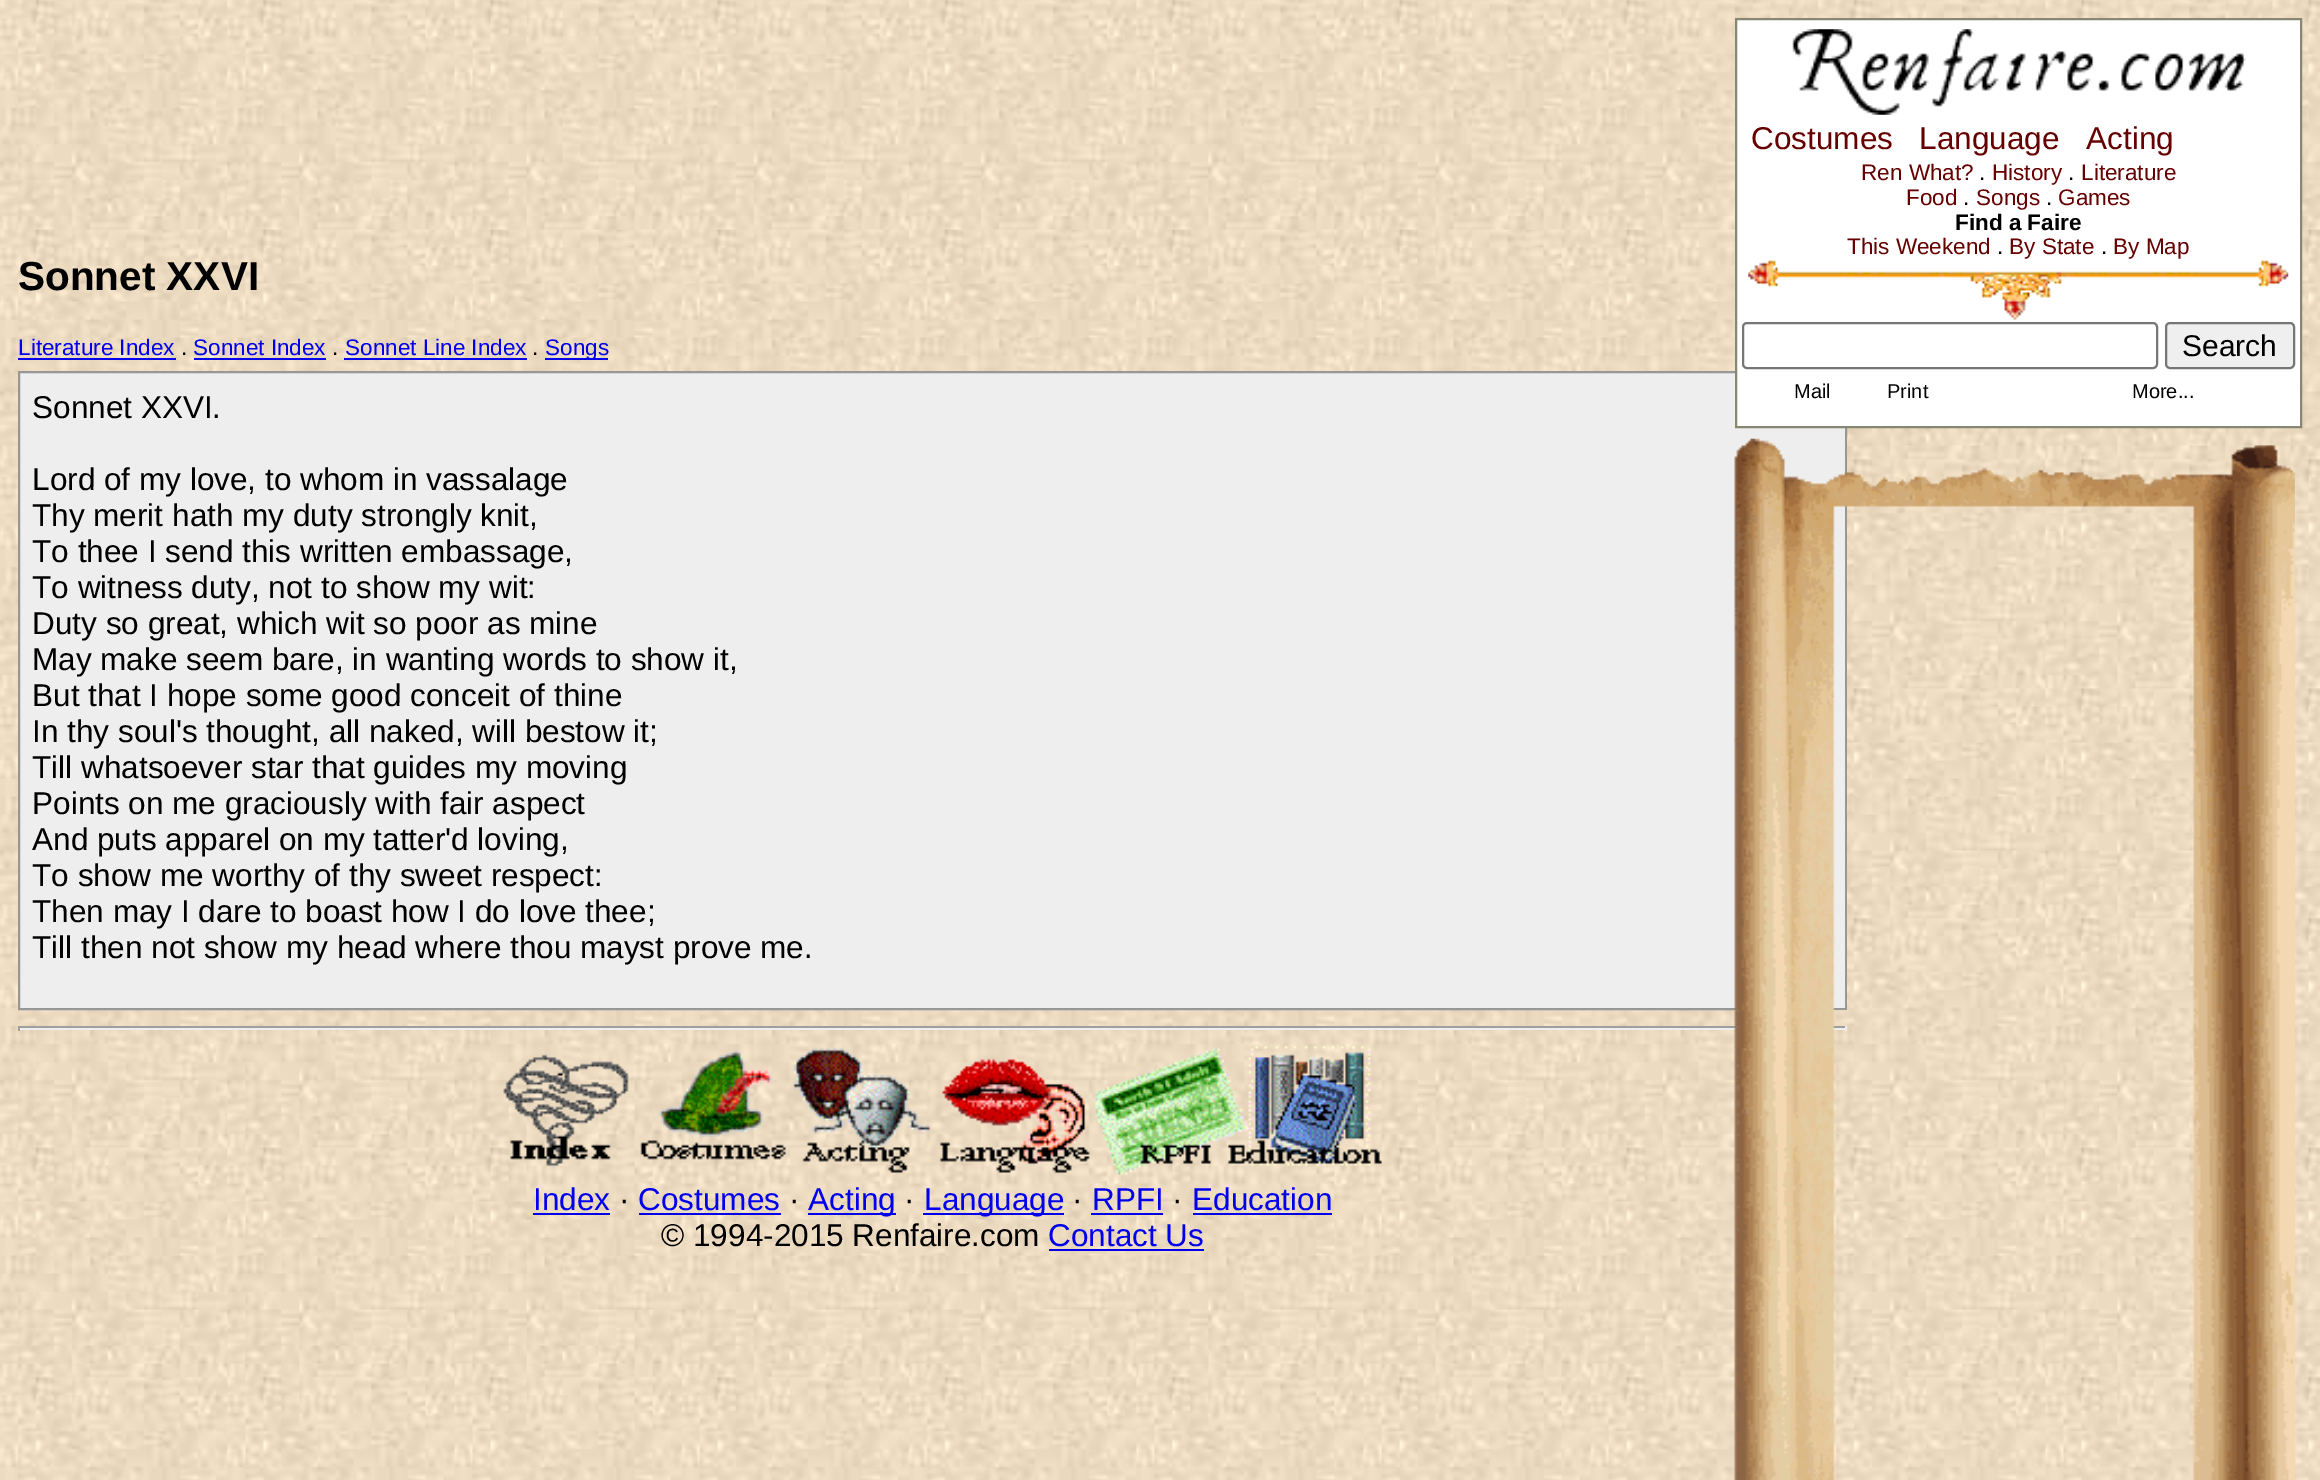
%!PS
<< /PageSize [2320 1480] >> setpagedevice
/m/moveto load def
/l/rlineto load def
/z/closepath load def
/f/fill load def
/s/stroke load def
/q/gsave load def
/Q_/grestore load def
/w/setlinewidth load def
/C { dup -16 bitshift 255 div exch dup -8 bitshift 255 and 255 div exch 255 and 255 div setrgbcolor } def
/F { [ exch dup neg 0 0 3 -1 roll 0 0 ] selectfont } def
/T { moveto show } def
/R { rectfill } def
/Q { 5 dict begin { /r /h /w /y /x } { exch def } forall
  x r add y moveto x w add y 2 copy h add r arct x w add y h add x 1 index r arct
  x y h add x y r arct x y 2 copy exch w add exch r arct closepath end } def
/I { 5 dict begin { /h /w /y /x /name } { exch def } forall
  gsave x y translate w h scale
  w h 8 [w 0 0 h 0 0] name (r) file false 3 colorimage grestore end } def
0 1480 translate 1 -1 scale
4 setmiterlimit
16#FFFFFF C
0 0 2320 1480 R
(1.rgb) 0 0 2320 1480 I
/LiberationSans-Bold 40.5 F
16#000000 C
(Sonnet XXVI) 18 290 T
/LiberationSans-Regular 22.5 F
16#0000EE C
(Literature Index) 18 355 T
16#000000 C
(.) 181 355 T
16#0000EE C
18 358 158 2 R
(Sonnet Index) 193 355 T
16#000000 C
(.) 332 355 T
16#0000EE C
194 358 132 2 R
344 358 183 2 R
(Sonnet Line Index) 345 355 T
16#000000 C
(.) 532 355 T
16#0000EE C
545 358 63 2 R
(Songs) 545 355 T
16#EEEEEE C
19 372 m 1827 0 l 0 637 l -1827 0 l z q f Q_
16#979797 C
2 w
s
/LiberationSans-Regular 31.5 F
16#000000 C
(Sonnet XXVI.) 32 418 T
(Lord of my love, to whom in vassalage) 32 490 T
(Thy merit hath my duty strongly knit,) 32 526 T
(To thee I send this written embassage,) 32 562 T
(To witness duty, not to show my wit:) 32 598 T
(Duty so great, which wit so poor as mine) 32 634 T
(May make seem bare, in wanting words to show it,) 32 670 T
(But that I hope some good conceit of thine) 32 706 T
(In thy soul's thought, all naked, will bestow it;) 32 742 T
(Till whatsoever star that guides my moving) 32 778 T
(Points on me graciously with fair aspect) 32 814 T
(And puts apparel on my tatter'd loving,) 32 850 T
(To show me worthy of thy sweet respect:) 32 886 T
(Then may I dare to boast how I do love thee;) 32 922 T
(Till then not show my head where thou mayst prove me.) 32 958 T
16#9F9F9F C
18 1026 1829 2 R
16#EEEEEE C
1845 1026 2 5 R
18 1028 1829 2 R
16#9F9F9F C
18 1026 2 5 R
(2.rgb) 503 1046 879 130 I
16#0000EE C
(Index) 533 1210 T
533 1213 77 2 R
16#000000 C
(·) 619 1210 T
16#0000EE C
(Costumes) 638 1210 T
639 1213 142 2 R
16#000000 C
(·) 789 1210 T
16#0000EE C
808 1213 88 2 R
(Acting) 808 1210 T
16#000000 C
(·) 904 1210 T
16#0000EE C
923 1213 141 2 R
(Language) 924 1210 T
16#000000 C
(·) 1072 1210 T
16#0000EE C
(RPFI) 1092 1210 T
1091 1213 72 2 R
16#000000 C
(·) 1172 1210 T
16#0000EE C
(Education) 1192 1210 T
1193 1213 139 2 R
16#000000 C
(© 1994-2015 Renfaire.com) 661 1246 T
16#0000EE C
(Contact Us) 1048 1246 T
1049 1249 155 2 R
16#FFFFFF C
1736 19 m 565 0 l 0 408 l -565 0 l z q f Q_
16#878773 C
s
(3.rgb) 1792 29 454 86 I
16#660000 C
(Costumes) 1751 149 T
(Language) 1919 149 T
(Acting) 2086 149 T
/LiberationSans-Regular 22.5 F
(Ren What?) 1861 180 T
16#000000 C
(.) 1979 180 T
16#660000 C
(History) 1992 180 T
16#000000 C
(.) 2068 180 T
16#660000 C
(Literature) 2081 180 T
(Food) 1906 205 T
16#000000 C
(.) 1963 205 T
16#660000 C
(Songs) 1976 205 T
16#000000 C
(.) 2046 205 T
16#660000 C
(Games) 2058 205 T
/LiberationSans-Bold 22.5 F
16#000000 C
(Find a Faire) 1955 230 T
/LiberationSans-Regular 22.5 F
16#660000 C
(This Weekend) 1847 254 T
16#000000 C
(.) 1997 254 T
16#660000 C
(By State) 2009 254 T
16#000000 C
(.) 2101 254 T
16#660000 C
(By Map) 2113 254 T
(4.rgb) 1748 260 541 60 I
16#767676 C
1743 323 414 45 4 Q s
16#EFEFEF C
2166 323 128 45 4 Q q f Q_
16#767676 C
s
/LiberationSans-Regular 30 F
16#000000 C
(Search) 2182 356 T
/LiberationSans-Regular 20 F
(Mail) 1794 398 T
(Print) 1887 398 T
(More...) 2132 398 T
(5.rgb) 1734 438 561 1042 I
showpage
